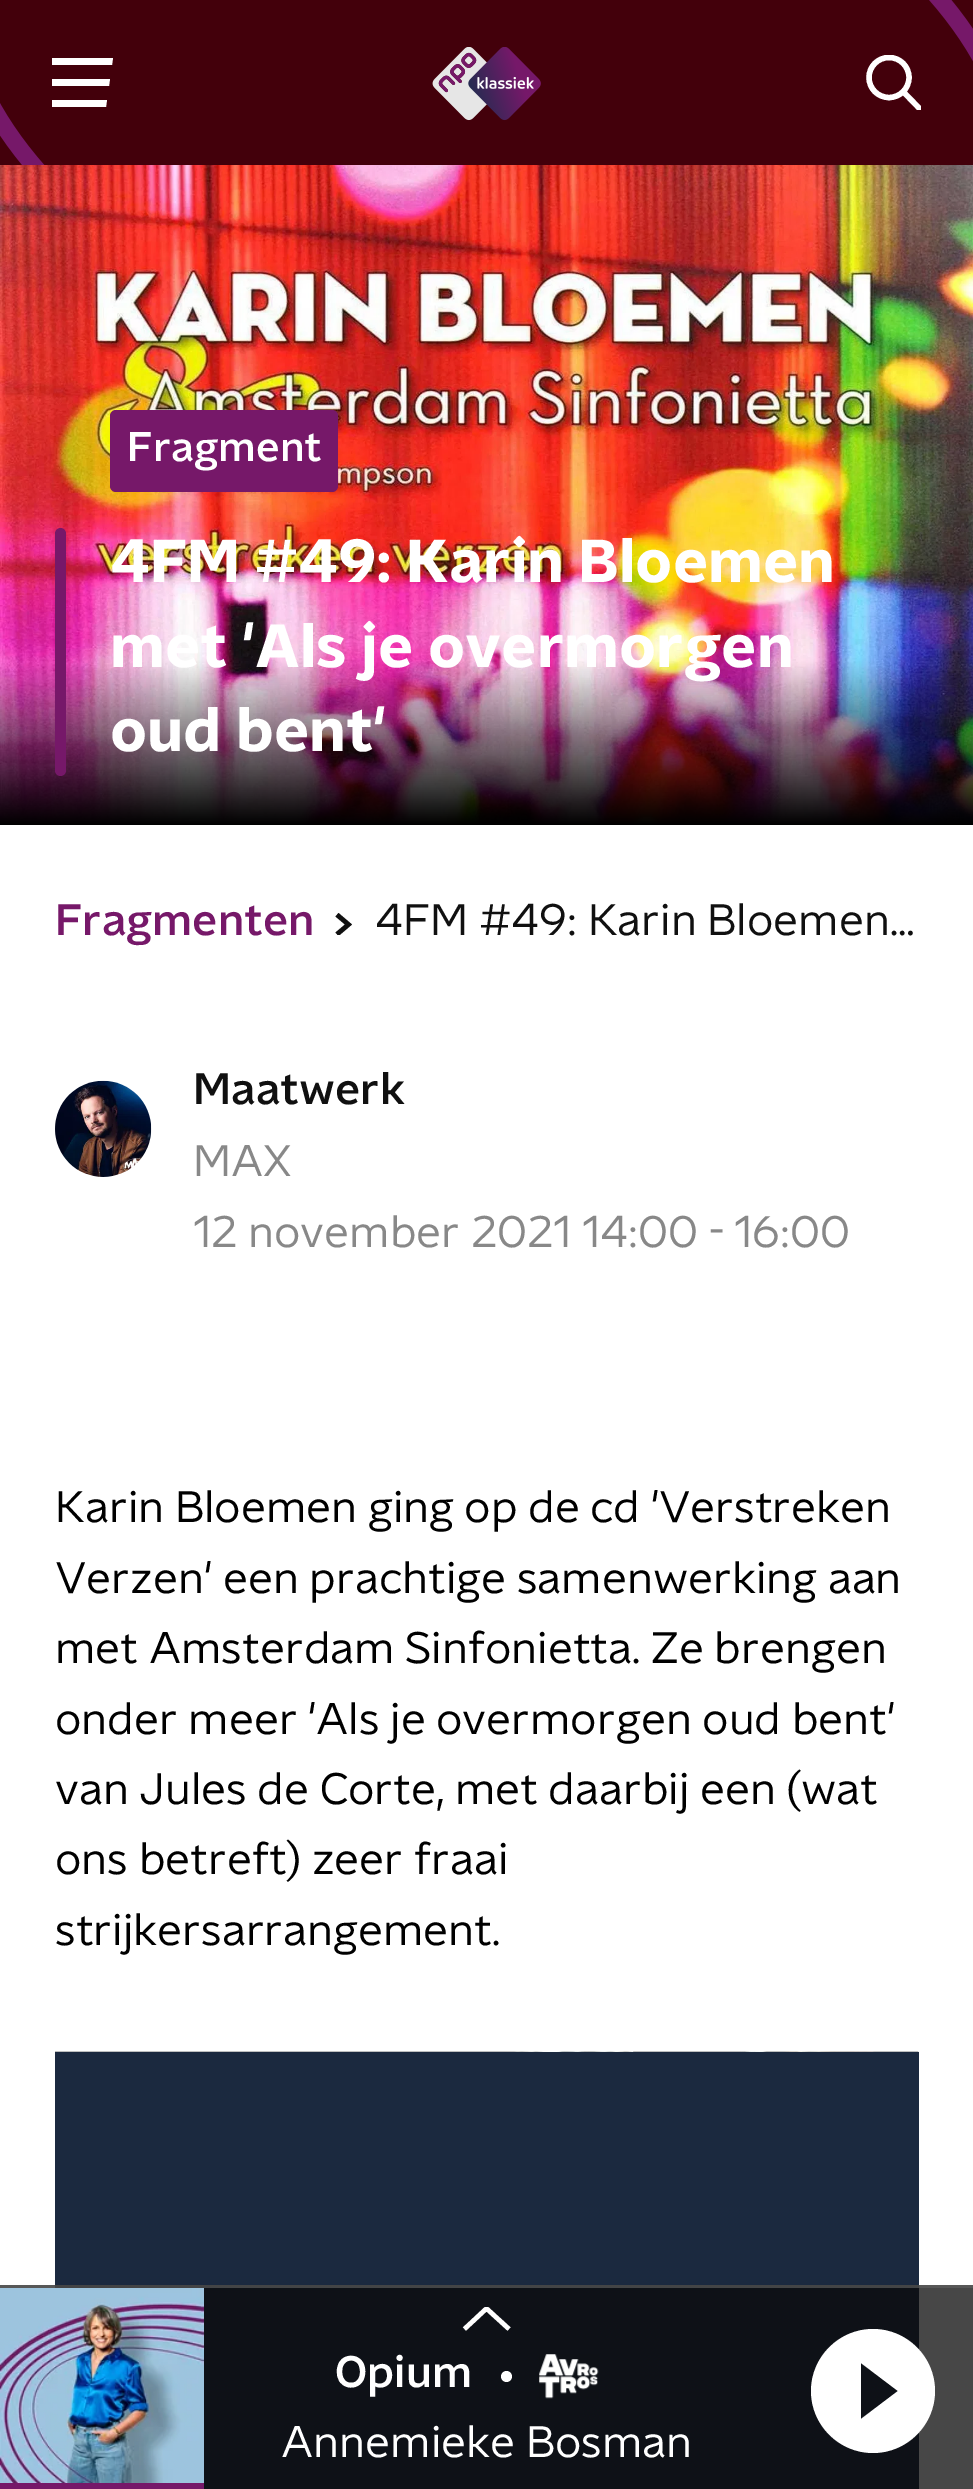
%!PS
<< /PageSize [973 2489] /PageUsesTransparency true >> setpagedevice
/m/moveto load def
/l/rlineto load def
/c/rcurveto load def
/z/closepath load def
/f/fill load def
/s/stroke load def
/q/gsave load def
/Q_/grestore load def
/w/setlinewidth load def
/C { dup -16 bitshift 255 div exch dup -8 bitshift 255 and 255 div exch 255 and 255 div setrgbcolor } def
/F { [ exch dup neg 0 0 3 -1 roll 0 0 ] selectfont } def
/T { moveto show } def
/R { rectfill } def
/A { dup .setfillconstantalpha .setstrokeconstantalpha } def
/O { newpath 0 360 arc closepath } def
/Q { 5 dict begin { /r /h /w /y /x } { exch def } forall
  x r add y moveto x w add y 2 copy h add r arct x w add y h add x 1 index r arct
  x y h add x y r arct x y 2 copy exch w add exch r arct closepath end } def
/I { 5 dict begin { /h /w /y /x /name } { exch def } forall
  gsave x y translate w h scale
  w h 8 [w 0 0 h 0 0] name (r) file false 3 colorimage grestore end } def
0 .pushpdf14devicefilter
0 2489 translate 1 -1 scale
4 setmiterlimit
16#FFFFFF C
0 0 973 2489 R
16#43000B C
0 0 973 165 R
(1.rgb) 0 0 973 165 I
16#FFFFFF C
52 58 m 61 0 l -1 7 l -60 0 l z 52 79 m 58 0 l -1 7 l -57 0 l z 52 100 m 55 0 l -1 7 l -54 0 l z f
(2.rgb) 432 47 109 74 I
q
866 55 55 55 rectclip
5.4 w
889 77.5 20 O s
2 setlinecap
903.5 92 m 16 16.5 l s
Q_
(3.rgb) 0 165 973 660 I
16#761869 C
110 410 228 82 6 Q f
/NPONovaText-Medium 41.25 F
16#FFFFFF C
(Fragment) 127 461 T
16#761869 C
55 528 11 248 5.5 Q f
/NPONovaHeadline-Bold 60.5 F
16#FFFFFF C
(4FM #49: Karin Bloemen) 110 582 T
(met 'Als je overmorgen) 110 667 T
(oud bent') 110 751 T
/NPONovaText-Medium 44 F
16#761869 C
(Fragmenten) 55 935 T
q
314 913 60 22 rectclip
16#101010 C
338.5 913 m 13.5 11.5 l -13.5 11.5 l -3 -3.5 l 9.5 -8 l -9.5 -8 l z eofill
Q_
/NPONovaText-Regular 44 F
16#101010 C
(4FM #49: Karin Bloemen…) 375 935 T
(4.rgb) 55 1080 97 97 I
/NPONovaText-Medium 44 F
(Maatwerk) 193 1104 T
/NPONovaText-Regular 44 F
16#888888 C
(MAX) 193 1176 T
(12 november 2021 14:00 - 16:00) 193 1247 T
16#000000 C
(Karin Bloemen ging op de cd 'Verstreken) 55 1522 T
(Verzen' een prachtige samenwerking aan) 55 1593 T
(met Amsterdam Sinfonietta. Ze brengen) 55 1663 T
(onder meer 'Als je overmorgen oud bent') 55 1734 T
(van Jules de Corte, met daarbij een \(wat) 55 1804 T
(ons betreft\) zeer fraai) 55 1874 T
(strijkersarrangement.) 55 1945 T
(5.rgb) 55 2051 864 1 I
16#1B293F C
55 2052 864 437 R
0.75 A
16#090909 C
0 2285 973 204 R
0.65 A
16#5F5F5F C
0 2285 973 3 R
1 A
(6.rgb) 0 2288 204 195 I
16#761869 C
0 2483 204 6 R
q
462 2307 50 25 rectclip
16#FFFFFF C
4.5 w
509 2329 m -22.5 -20.5 l -22 20.5 l s
Q_
/NPONovaText-Medium 44 F
16#FFFFFF C
(Opium) 335 2387 T
506.5 2376.5 5.5 O f
(7.rgb) 539 2354 60 45 I
/NPONovaText-Regular 44 F
(Annemieke Bosman) 281 2457 T
873 2329 m -34 0 -62 28 -62 62 c 0 34 28 62 62 62 c 34 0 62 -28 62 -62 c 0 -34 -28 -62 -62 -62 c z 861 2419 m 0 -56 l 37 28 l z f
.poppdf14devicefilter showpage
